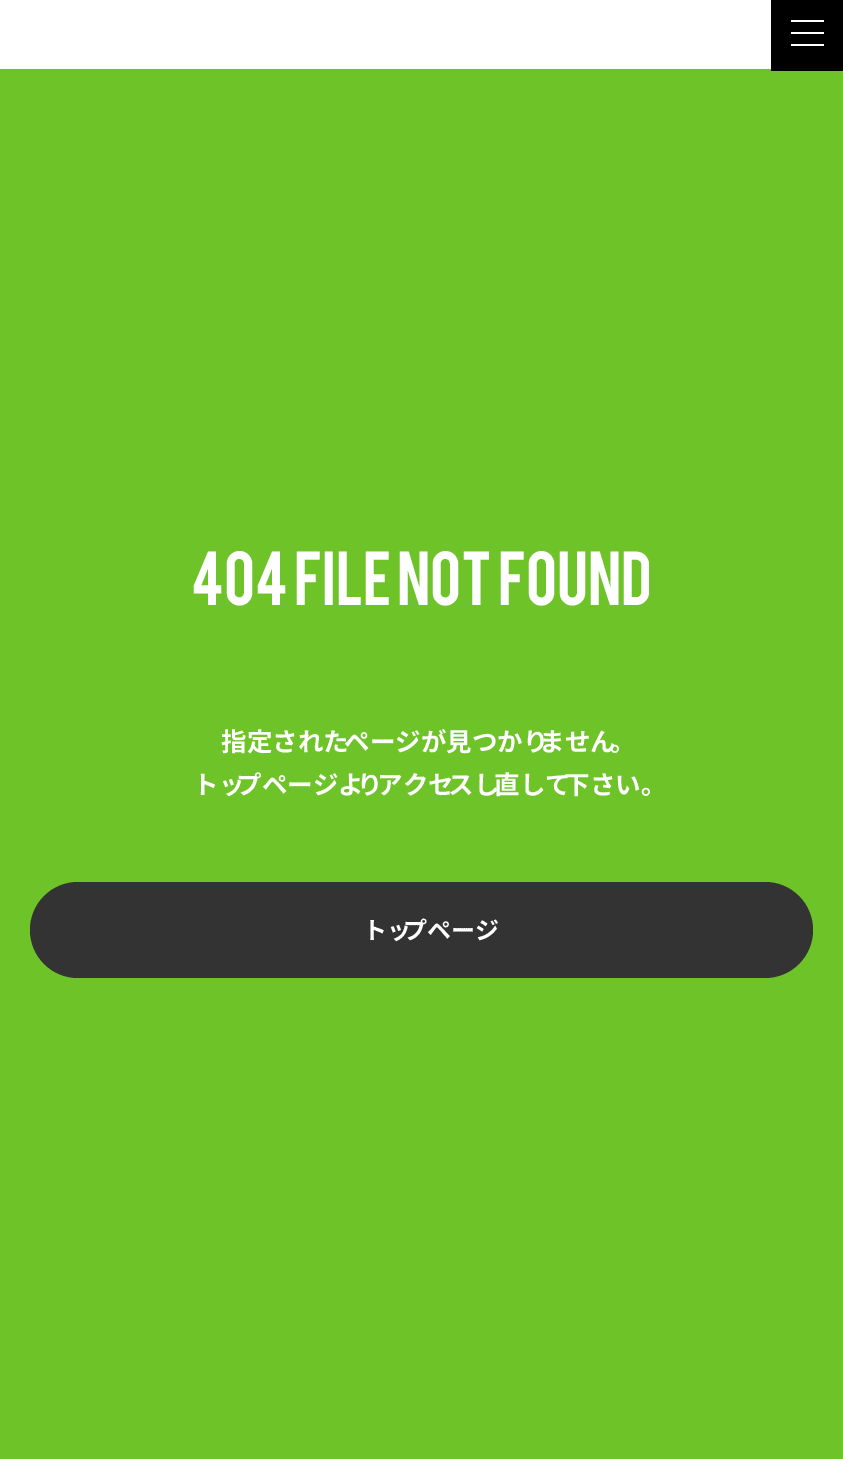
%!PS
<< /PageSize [843 1459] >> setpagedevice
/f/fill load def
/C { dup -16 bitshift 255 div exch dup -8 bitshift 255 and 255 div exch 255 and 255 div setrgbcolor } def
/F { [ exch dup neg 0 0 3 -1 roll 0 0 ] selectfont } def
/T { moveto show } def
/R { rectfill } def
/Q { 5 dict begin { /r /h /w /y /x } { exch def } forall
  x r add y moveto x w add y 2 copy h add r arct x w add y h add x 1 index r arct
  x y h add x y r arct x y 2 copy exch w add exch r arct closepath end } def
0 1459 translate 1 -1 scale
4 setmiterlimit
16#FFFFFF C
0 0 843 1459 R
16#6DC328 C
0 69 843 1390 R
16#000000 C
771 0 72 71 R
16#FFFFFF C
791 32 33 2 R
791 20 33 2 R
791 44 33 2 R
/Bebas-Regular 60 F
(404 File Not Found) 191 605 T
/NotoSansJP-Bold 25.5 F
(指定された) 221 751 T
(ページが見つかり) 344 751 T
(ません) 539 751 T
(。) 610 751 T
(トッ) 193 794 T
(プページよ) 236 794 T
(り) 357 794 T
(アクセ) 377 794 T
(スし) 448 794 T
(直して) 494 794 T
(下さい。) 564 794 T
16#333333 C
30 882 783 96 48 Q f
/NotoSansJP-Bold 24 F
16#FFFFFF C
(トッ) 363 939 T
(プページ) 403 939 T
showpage
